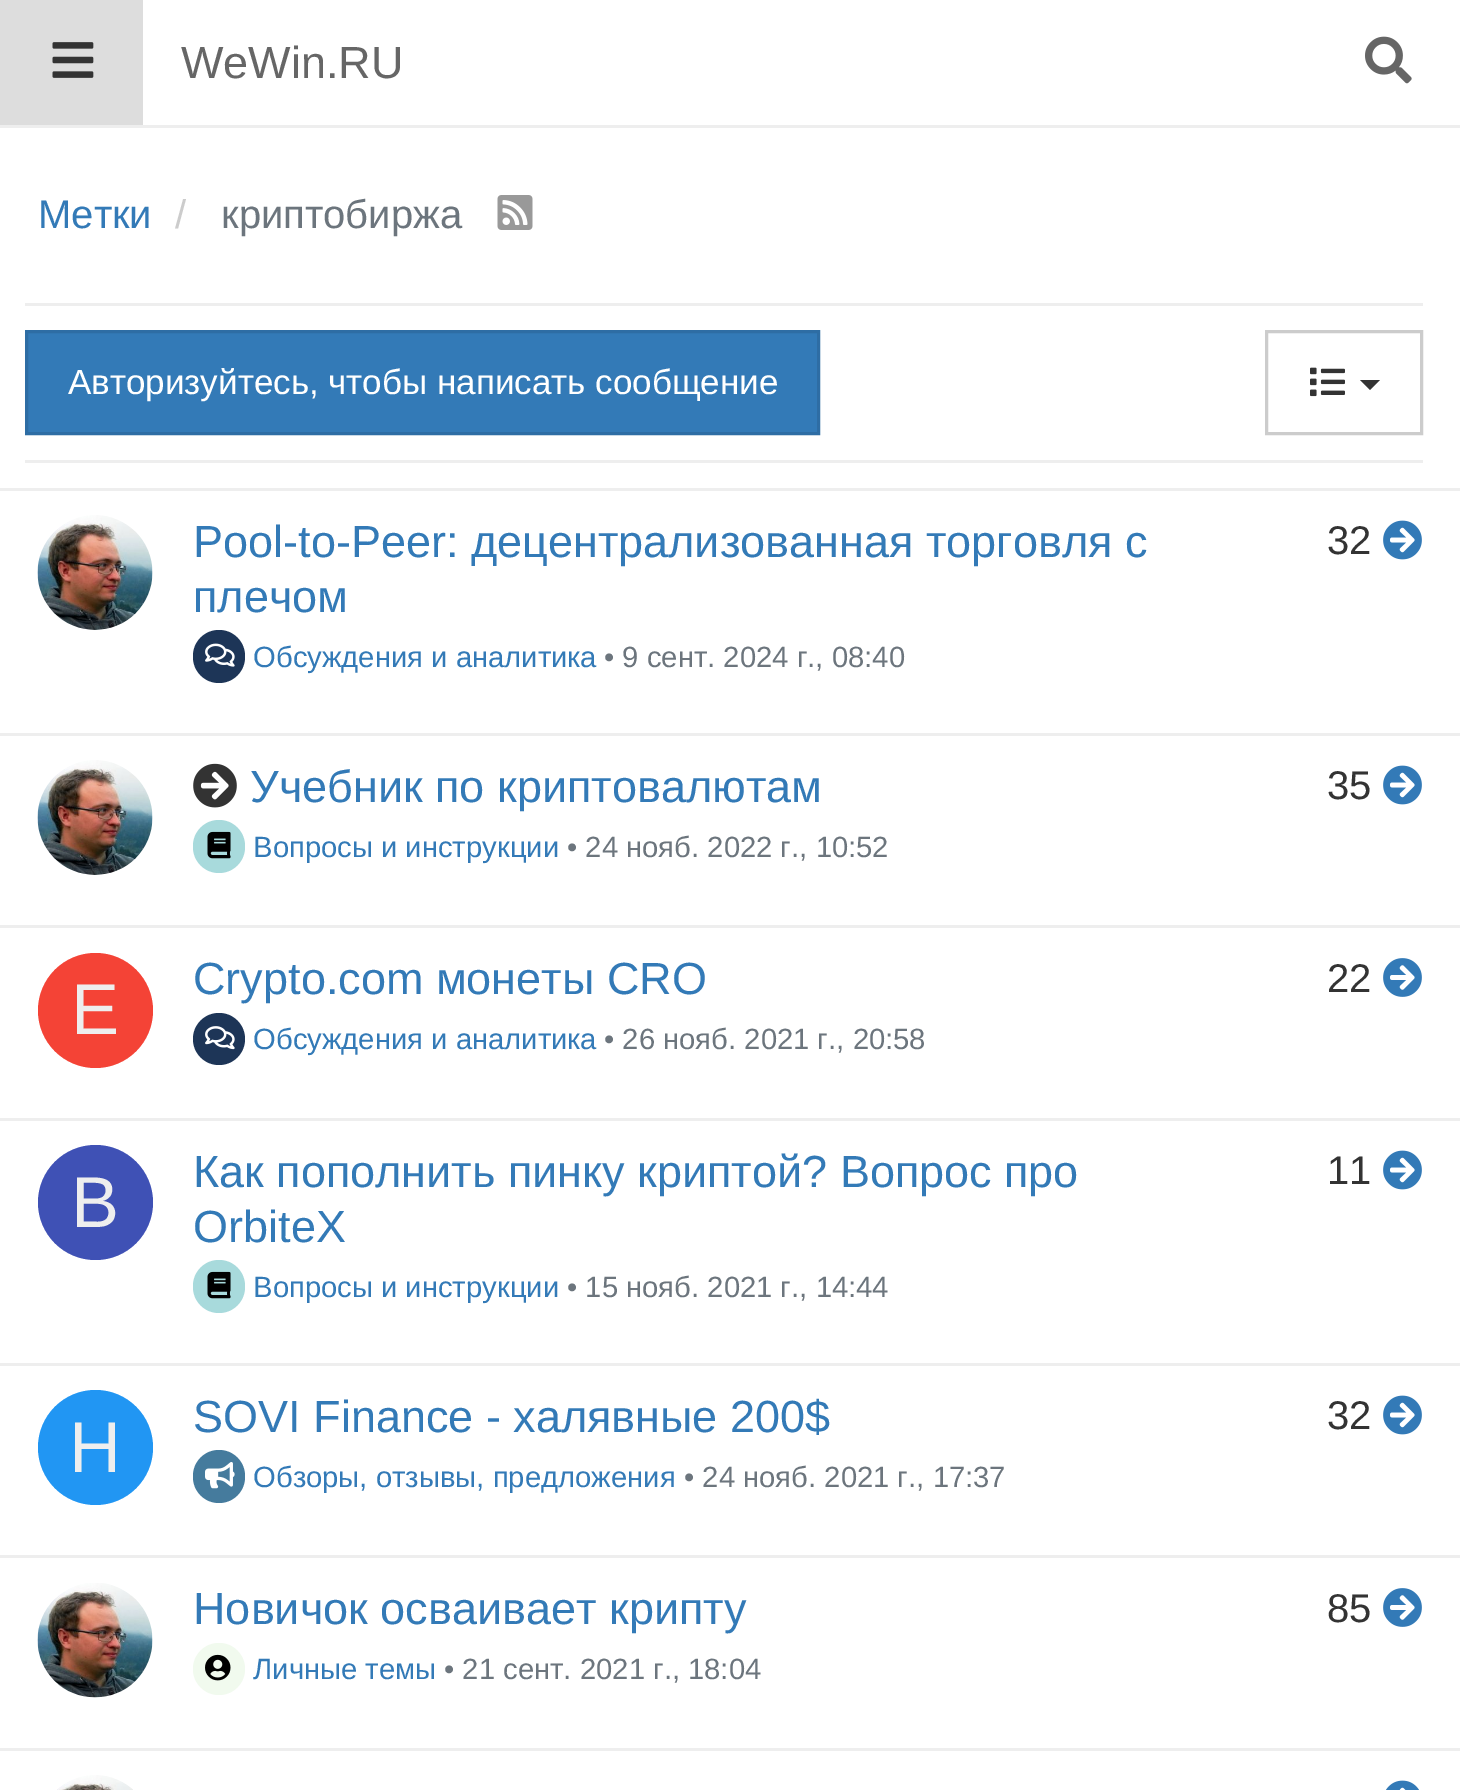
%!PS
<< /PageSize [1460 1790] >> setpagedevice
/m/moveto load def
/l/rlineto load def
/z/closepath load def
/f/fill load def
/s/stroke load def
/q/gsave load def
/Q_/grestore load def
/w/setlinewidth load def
/C { dup -16 bitshift 255 div exch dup -8 bitshift 255 and 255 div exch 255 and 255 div setrgbcolor } def
/F { [ exch dup neg 0 0 3 -1 roll 0 0 ] selectfont } def
/T { moveto show } def
/R { rectfill } def
/O { newpath 0 360 arc closepath } def
/Q { 5 dict begin { /r /h /w /y /x } { exch def } forall
  x r add y moveto x w add y 2 copy h add r arct x w add y h add x 1 index r arct
  x y h add x y r arct x y 2 copy exch w add exch r arct closepath end } def
/I { 5 dict begin { /h /w /y /x /name } { exch def } forall
  gsave x y translate w h scale
  w h 8 [w 0 0 h 0 0] name (r) file false 3 colorimage grestore end } def
0 1790 translate 1 -1 scale
4 setmiterlimit
16#FFFFFF C
0 0 1460 1790 R
16#EEEEEE C
0 125 1460 3 R
16#DDDDDD C
0 0 143 125 R
(1.rgb) 52 42 42 36 I
/LiberationSans-Regular 45 F
16#666666 C
(WeWin.RU) 181 78 T
(2.rgb) 1365 36 47 48 I
/LiberationSans-Regular 40 F
16#337AB7 C
(Метки) 38 228 T
16#CCCCCC C
(/) 175 228 T
16#6C757D C
(криптобиржа) 221 228 T
(3.rgb) 497 195 36 35 I
16#EEEEEE C
25 303 1398 3 R
25 460 1398 3 R
16#337AB7 C
26.5 331.5 m 792 0 l 0 102 l -792 0 l z q f Q_
16#2E6DA4 C
3 w
s
/LiberationSans-Regular 35 F
16#FFFFFF C
(Авторизуйтесь, чтобы написать сообщение) 68 394 T
16#CCCCCC C
1266.5 331.5 155 102 rectstroke
(4.rgb) 1310 367 35 30 I
16#333333 C
1360 380 m 20 0 l -10 10 l z f
16#EEEEEE C
0 488 1460 3 R
(5.rgb) 37 515 116 115 I
/LiberationSans-Regular 45 F
16#337AB7 C
(Pool-to-Peer: децентрализованная торговля с) 193 557 T
(плечом) 193 612 T
16#1D3557 C
193 630 52 53 26 Q f
(6.rgb) 205 643 30 24 I
/LiberationSans-Regular 29.25 F
16#337AB7 C
(Обсуждения и аналитика) 253 667 T
16#6C757D C
(• 9 сент. 2024 г., 08:40) 604 667 T
/LiberationSans-Regular 40 F
16#333333 C
(32) 1327 554 T
(7.rgb) 1383 520 39 40 I
16#EEEEEE C
0 733 1460 3 R
(8.rgb) 37 760 116 115 I
(9.rgb) 193 763 44 45 I
/LiberationSans-Regular 45 F
16#337AB7 C
(Учебник по криптовалютам) 250 802 T
16#A8DADC C
193 820 52 53 26 Q f
(10.rgb) 207 831 24 28 I
/LiberationSans-Regular 29.25 F
16#337AB7 C
(Вопросы и инструкции) 253 857 T
16#6C757D C
(• 24 нояб. 2022 г., 10:52) 567 857 T
/LiberationSans-Regular 40 F
16#333333 C
(35) 1327 799 T
(7.rgb) 1383 765 39 40 I
16#EEEEEE C
0 925 1460 3 R
16#F44336 C
95.5 1010.5 57.5 O f
/LiberationSans-Regular 72 F
16#EEEEEE C
(E) 71 1034 T
/LiberationSans-Regular 45 F
16#337AB7 C
(Crypto.com монеты CRO) 193 994 T
16#1D3557 C
219 1039 26 O f
(11.rgb) 205 1026 30 24 I
/LiberationSans-Regular 29.25 F
16#337AB7 C
(Обсуждения и аналитика) 253 1049 T
16#6C757D C
(• 26 нояб. 2021 г., 20:58) 604 1049 T
/LiberationSans-Regular 40 F
16#333333 C
(22) 1327 992 T
(12.rgb) 1383 958 39 39 I
16#EEEEEE C
0 1118 1460 3 R
16#3F51B5 C
95.5 1202.5 57.5 O f
/LiberationSans-Regular 72 F
16#EEEEEE C
(B) 71 1227 T
/LiberationSans-Regular 45 F
16#337AB7 C
(Как пополнить пинку криптой? Вопрос про) 193 1187 T
(OrbiteX) 193 1242 T
16#A8DADC C
193 1260 52 53 26 Q f
(10.rgb) 207 1271 24 28 I
/LiberationSans-Regular 29.25 F
16#337AB7 C
(Вопросы и инструкции) 253 1297 T
16#6C757D C
(• 15 нояб. 2021 г., 14:44) 567 1297 T
/LiberationSans-Regular 40 F
16#333333 C
(11) 1327 1184 T
(7.rgb) 1383 1150 39 40 I
16#EEEEEE C
0 1363 1460 3 R
16#2196F3 C
95.5 1447.5 57.5 O f
/LiberationSans-Regular 72 F
16#EEEEEE C
(H) 69 1472 T
/LiberationSans-Regular 45 F
16#337AB7 C
(SOVI Finance - халявные 200$) 193 1432 T
16#457B9D C
193 1450 52 53 26 Q f
(13.rgb) 205 1462 30 27 I
/LiberationSans-Regular 29.25 F
16#337AB7 C
(Обзоры, отзывы, предложения) 253 1487 T
16#6C757D C
(• 24 нояб. 2021 г., 17:37) 684 1487 T
/LiberationSans-Regular 40 F
16#333333 C
(32) 1327 1429 T
(7.rgb) 1383 1395 39 40 I
16#EEEEEE C
0 1555 1460 3 R
(14.rgb) 37 1583 116 115 I
/LiberationSans-Regular 45 F
16#337AB7 C
(Новичок осваивает крипту) 193 1624 T
16#F1FAEE C
219 1669 26 O f
(15.rgb) 205 1654 26 27 I
/LiberationSans-Regular 29.25 F
16#337AB7 C
(Личные темы) 253 1679 T
16#6C757D C
(• 21 сент. 2021 г., 18:04) 444 1679 T
/LiberationSans-Regular 40 F
16#333333 C
(85) 1327 1622 T
(12.rgb) 1383 1588 39 39 I
16#EEEEEE C
0 1748 1460 3 R
(16.rgb) 57 1775 76 15 I
(17.rgb) 1386 1780 33 10 I
showpage
